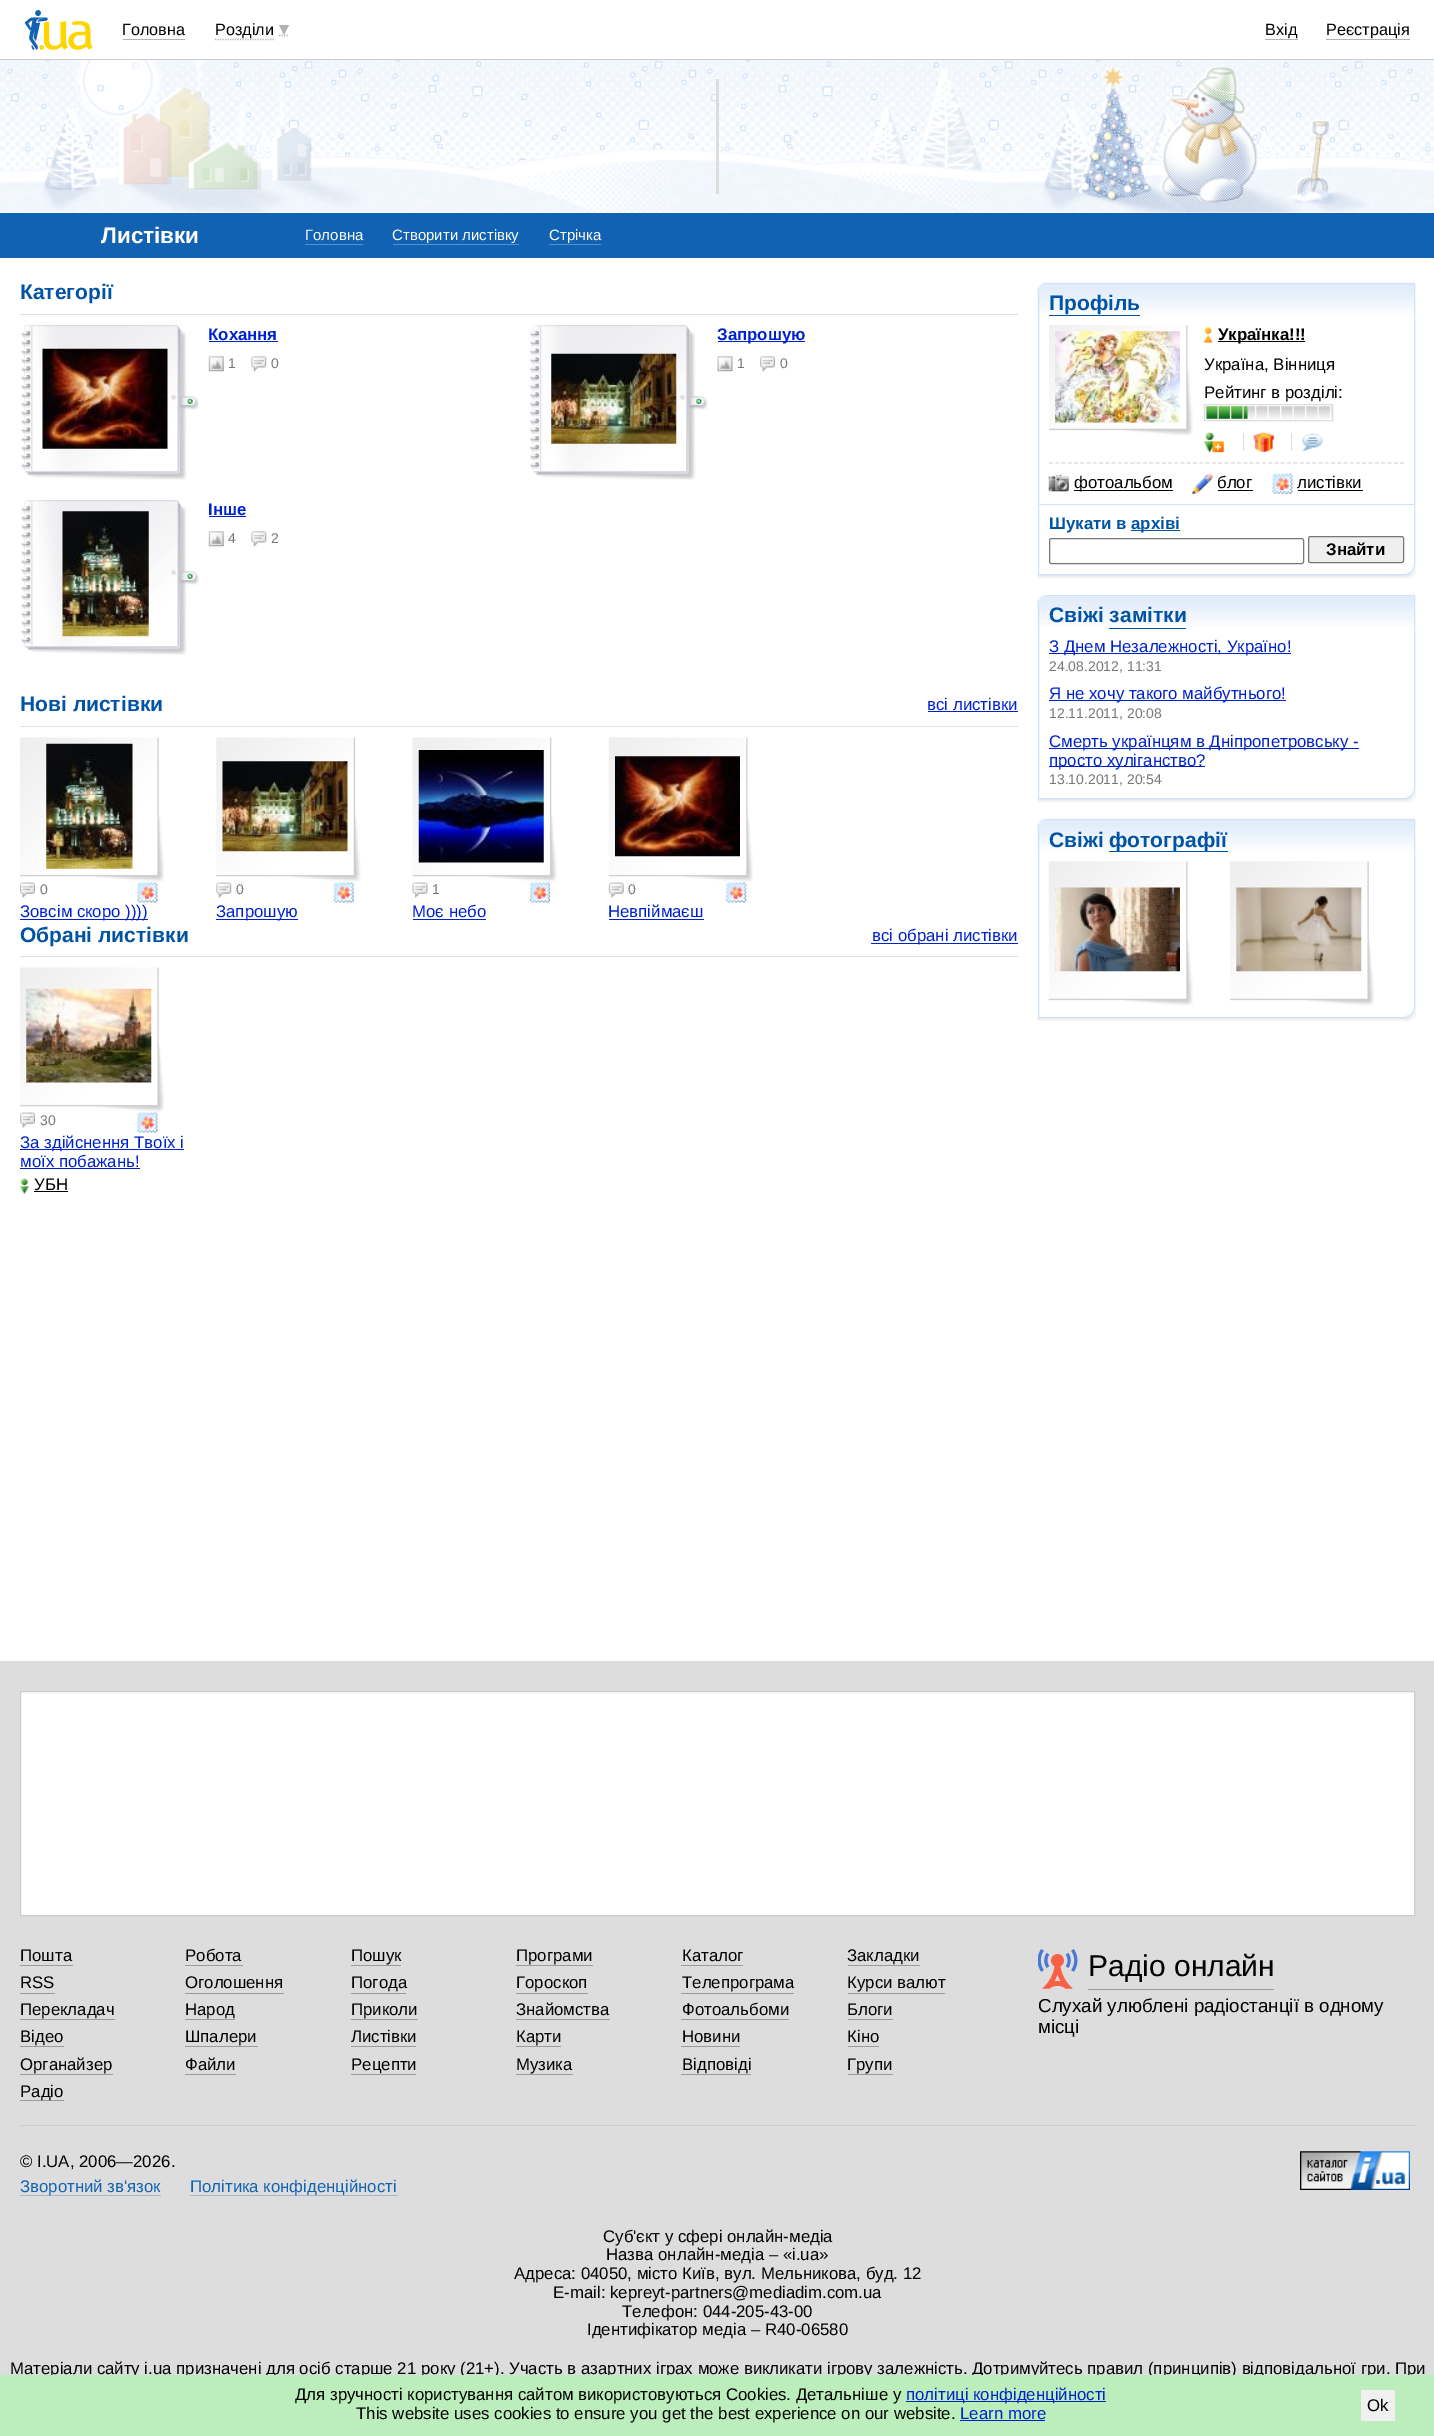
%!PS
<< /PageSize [1434 2436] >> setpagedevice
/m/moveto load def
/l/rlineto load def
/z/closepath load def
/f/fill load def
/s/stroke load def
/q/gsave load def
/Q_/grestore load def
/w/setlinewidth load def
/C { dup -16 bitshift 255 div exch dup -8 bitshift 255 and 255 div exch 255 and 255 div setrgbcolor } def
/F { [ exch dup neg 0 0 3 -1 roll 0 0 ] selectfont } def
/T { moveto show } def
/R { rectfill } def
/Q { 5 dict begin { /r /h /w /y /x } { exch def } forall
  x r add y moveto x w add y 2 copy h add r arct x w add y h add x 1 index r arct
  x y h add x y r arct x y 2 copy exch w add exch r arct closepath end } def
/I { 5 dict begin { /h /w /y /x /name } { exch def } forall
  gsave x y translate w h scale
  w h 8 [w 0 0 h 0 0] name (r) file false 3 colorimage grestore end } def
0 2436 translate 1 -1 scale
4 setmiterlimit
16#FFFFFF C
0 0 1434 2436 R
16#CCCCCC C
0 59 1434 1 R
(1.rgb) 25 10 68 40 I
/LiberationSans-Regular 16.25 F
16#000000 C
(Головна) 122 35 T
16#B3B3B3 C
123 39 62 1 R
1.2 w
[1.25 1.25] 0 setdash
215 39.5 m 59 0 l s
279 35.5 m 10 0 l s
16#000000 C
(Розділи) 215 35 T
16#B3B3B3 C
279 25 m 10 0 l -5 10 l z f
16#000000 C
(Вхід) 1265 35 T
16#B3B3B3 C
1265 39 33 1 R
16#000000 C
(Реєстрація) 1326 35 T
16#B3B3B3 C
1326 39 84 1 R
(2.rgb) 0 60 1434 153 I
16#DDDDDD C
716 79 3 115 R
16#1162B3 C
0 213 1434 45 R
/LiberationSans-Bold 22.5 F
16#FFFFFF C
(Листівки) 101 243 T
/LiberationSans-Regular 15 F
(Головна) 305 240 T
16#5891CA C
305 244 58 1 R
16#FFFFFF C
(Створити листівку) 392 240 T
16#5891CA C
393 244 126 1 R
16#FFFFFF C
(Стрічка) 549 240 T
16#5891CA C
549 244 52 1 R
/LiberationSans-Bold 21 F
16#0053A5 C
(Категорії) 20 299 T
16#DDDDDD C
20 314 998 1 R
(3.rgb) 21 325 178 155 I
(4.rgb) 42 348 126 101 I
/LiberationSans-Bold 16.8 F
16#0022CC C
(Кохання) 208 340 T
209 341 69 1 R
(5.rgb) 208 356 16 16 I
/LiberationSans-Regular 14 F
16#777777 C
(1) 228 368 T
(6.rgb) 251 356 16 16 I
(0) 271 368 T
(7.rgb) 530 325 178 155 I
(8.rgb) 551 353 126 91 I
16#0022CC C
718 341 87 1 R
/LiberationSans-Bold 16.8 F
(Запрошую) 717 340 T
(9.rgb) 717 356 16 16 I
/LiberationSans-Regular 14 F
16#777777 C
(1) 737 368 T
(10.rgb) 760 356 15 16 I
(0) 780 368 T
(3.rgb) 21 500 178 155 I
(11.rgb) 62 511 87 126 I
/LiberationSans-Bold 16.8 F
16#0022CC C
(Інше) 208 515 T
209 516 37 1 R
(5.rgb) 208 531 16 16 I
/LiberationSans-Regular 14 F
16#777777 C
(4) 228 543 T
(6.rgb) 251 531 16 16 I
(2) 271 543 T
16#DDDDDD C
20 726 998 1 R
/LiberationSans-Bold 21 F
16#0053A5 C
(Нові листівки) 20 711 T
/LiberationSans-Regular 16.8 F
16#0022CC C
(всі листівки) 927 710 T
928 711 90 1 R
(12.rgb) 20 737 144 145 I
(13.rgb) 46 743 87 126 I
(14.rgb) 20 882 15 16 I
/LiberationSans-Regular 14 F
16#777777 C
(0) 40 894 T
(15.rgb) 137 882 21 21 I
16#0022CC C
20 919 128 1 R
/LiberationSans-Regular 16.8 F
(Зовсім скоро \)\)\)\)) 20 917 T
(16.rgb) 216 737 145 145 I
(17.rgb) 222 761 126 91 I
(18.rgb) 216 882 16 16 I
/LiberationSans-Regular 14 F
16#777777 C
(0) 236 894 T
(19.rgb) 333 882 21 21 I
16#0022CC C
216 919 82 1 R
/LiberationSans-Regular 16.8 F
(Запрошую) 216 917 T
(20.rgb) 412 737 145 145 I
(21.rgb) 418 750 126 113 I
(22.rgb) 412 882 16 16 I
/LiberationSans-Regular 14 F
16#777777 C
(1) 432 894 T
(23.rgb) 530 882 20 21 I
/LiberationSans-Regular 16.8 F
16#0022CC C
(Моє небо) 412 917 T
413 919 73 1 R
(24.rgb) 608 737 145 145 I
(25.rgb) 615 756 125 101 I
(26.rgb) 608 882 16 16 I
/LiberationSans-Regular 14 F
16#777777 C
(0) 628 894 T
(27.rgb) 726 882 21 21 I
/LiberationSans-Regular 16.8 F
16#0022CC C
(Невпіймаєш) 608 917 T
609 919 95 1 R
16#DDDDDD C
20 956 998 1 R
/LiberationSans-Bold 21 F
16#0053A5 C
(Обрані листівки) 20 942 T
16#0022CC C
871 943 147 1 R
/LiberationSans-Regular 16.8 F
(всі обрані листівки) 872 941 T
(12.rgb) 20 967 144 145 I
(28.rgb) 26 988 126 95 I
(14.rgb) 20 1112 15 16 I
/LiberationSans-Regular 14 F
16#777777 C
(30) 40 1125 T
(15.rgb) 137 1112 21 21 I
16#0022CC C
20 1149 164 1 R
/LiberationSans-Regular 16.8 F
(За здійснення Твоїх і) 20 1148 T
(моїх побажань!) 20 1167 T
20 1168 120 1 R
(29.rgb) 20 1178 9 16 I
16#000000 C
(УБН) 34 1190 T
34 1191 34 1 R
(30.rgb) 1037 575 368 4 I
(32.rgb) 1037 283 377 32 I
16#CEE3F7 C
1 w
[] 0 setdash
1038.5 283.5 376 291 rectstroke
(31.rgb) 1037 282 11 11 I
/LiberationSans-Bold 21 F
16#0053A5 C
(Профіль) 1049 310 T
1049 315 91 1 R
(33.rgb) 1049 325 144 111 I
(34.rgb) 1055 331 125 92 I
(35.rgb) 1203 327 10 16 I
16#000000 C
1218 341 87 1 R
/LiberationSans-Bold 16.8 F
(Українка!!!) 1218 340 T
/LiberationSans-Regular 16.8 F
(Україна, Вінниця) 1204 370 T
(Рейтинг в розділі:) 1204 398 T
(36.rgb) 1203 406 129 13 I
16#DDDDDD C
1204.5 404.5 128 16 rectstroke
(37.rgb) 1206 406 42 13 I
(38.rgb) 1203 432 21 21 I
1243 433 1 18 R
(39.rgb) 1253 432 21 21 I
1291 433 1 18 R
(40.rgb) 1302 433 21 19 I
1.2 w
[3.75 2.52] 0 setdash
1049 463 m 355 0 l s
(41.rgb) 1048 474 21 18 I
16#000000 C
1074 490 99 1 R
(фотоальбом) 1074 488 T
(42.rgb) 1192 473 21 21 I
(блог) 1217 488 T
1218 490 35 1 R
(43.rgb) 1272 473 21 21 I
(листівки) 1297 488 T
1298 490 65 1 R
16#CEE3F7 C
1039 504 375 1 R
/LiberationSans-Bold 16.8 F
16#0053A5 C
(Шукати в) 1049 529 T
1131 530 49 1 R
(архіві) 1131 529 T
16#767676 C
1 w
[] 0 setdash
1049.5 538.5 254 25 2 Q s
16#EFEFEF C
1308.5 536.5 95 26 2 Q q f Q_
16#767676 C
s
16#000000 C
(Знайти) 1326 555 T
(44.rgb) 1405 565 10 14 I
(45.rgb) 1037 799 368 4 I
(47.rgb) 1037 596 377 30 I
16#CEE3F7 C
1038.5 595.5 376 203 rectstroke
(46.rgb) 1037 595 10 10 I
/LiberationSans-Bold 21 F
16#0053A5 C
(Свіжі замітки) 1049 622 T
1109 628 77 1 R
16#0022CC C
1049 653 242 1 R
/LiberationSans-Regular 16.8 F
(З Днем Незалежності, Україно!) 1049 652 T
/LiberationSans-Regular 14 F
16#777777 C
(24.08.2012, 11:31) 1049 671 T
16#0022CC C
1049 700 237 1 R
/LiberationSans-Regular 16.8 F
(Я не хочу такого майбутнього!) 1049 699 T
/LiberationSans-Regular 14 F
16#777777 C
(12.11.2011, 20:08) 1049 718 T
16#0022CC C
1049 748 310 1 R
/LiberationSans-Regular 16.8 F
(Смерть українцям в Дніпропетровську -) 1049 747 T
1049 766 156 1 R
(просто хуліганство?) 1049 766 T
/LiberationSans-Regular 14 F
16#777777 C
(13.10.2011, 20:54) 1049 784 T
(48.rgb) 1405 789 10 14 I
(49.rgb) 1037 1018 368 3 I
(51.rgb) 1037 820 377 31 I
16#CEE3F7 C
1038.5 819.5 376 198 rectstroke
(50.rgb) 1037 818 11 11 I
/LiberationSans-Bold 21 F
16#0053A5 C
(Свіжі) 1049 847 T
1109 851 119 1 R
(фотографії) 1109 847 T
(52.rgb) 1048 861 145 145 I
(53.rgb) 1055 887 125 85 I
(54.rgb) 1230 861 144 145 I
(55.rgb) 1236 887 126 85 I
(56.rgb) 1405 1007 10 15 I
16#DDDDDD C
0 1661 1434 714 R
16#FFFFFF C
20.5 1691.5 m 1394 0 l 0 224 l -1394 0 l z q f Q_
16#CCCCCC C
s
/LiberationSans-Regular 16.8 F
16#000000 C
(Пошта) 20 1961 T
16#9B9B9B C
20 1965 53 1 R
16#000000 C
(Робота) 185 1961 T
16#9B9B9B C
185 1965 58 1 R
16#000000 C
(Пошук) 351 1961 T
16#9B9B9B C
351 1965 50 1 R
16#000000 C
(Програми) 516 1961 T
16#9B9B9B C
516 1965 77 1 R
16#000000 C
(Каталог) 682 1961 T
16#9B9B9B C
681 1965 62 1 R
16#000000 C
(Закладки) 847 1961 T
16#9B9B9B C
848 1965 72 1 R
16#000000 C
(RSS) 20 1988 T
16#9B9B9B C
20 1993 35 1 R
16#000000 C
(Оголошення) 185 1988 T
16#9B9B9B C
185 1993 99 1 R
16#000000 C
(Погода) 351 1988 T
16#9B9B9B C
351 1993 55 1 R
16#000000 C
(Гороскоп) 516 1988 T
16#9B9B9B C
516 1993 72 1 R
16#000000 C
(Телепрограма) 682 1988 T
16#9B9B9B C
681 1993 113 1 R
16#000000 C
(Курси валют) 847 1988 T
16#9B9B9B C
848 1993 97 1 R
16#000000 C
(Перекладач) 20 2015 T
16#9B9B9B C
20 2019 95 1 R
16#000000 C
(Народ) 185 2015 T
16#9B9B9B C
185 2019 50 1 R
16#000000 C
(Приколи) 351 2015 T
16#9B9B9B C
351 2019 67 1 R
16#000000 C
(Знайомства) 516 2015 T
16#9B9B9B C
516 2019 94 1 R
16#000000 C
(Фотоальбоми) 682 2015 T
16#9B9B9B C
681 2019 108 1 R
16#000000 C
(Блоги) 847 2015 T
16#9B9B9B C
848 2019 45 1 R
16#000000 C
(Відео) 20 2042 T
16#9B9B9B C
20 2046 44 1 R
16#000000 C
(Шпалери) 185 2042 T
16#9B9B9B C
185 2046 73 1 R
16#000000 C
(Листівки) 351 2042 T
16#9B9B9B C
351 2046 65 1 R
16#000000 C
(Карти) 516 2042 T
16#9B9B9B C
516 2046 45 1 R
16#000000 C
(Новини) 682 2042 T
16#9B9B9B C
681 2046 59 1 R
16#000000 C
(Кіно) 847 2042 T
16#9B9B9B C
848 2046 31 1 R
16#000000 C
(Органайзер) 20 2070 T
16#9B9B9B C
20 2074 93 1 R
16#000000 C
(Файли) 185 2070 T
16#9B9B9B C
185 2074 51 1 R
16#000000 C
(Рецепти) 351 2070 T
16#9B9B9B C
351 2074 65 1 R
16#000000 C
(Музика) 516 2070 T
16#9B9B9B C
516 2074 57 1 R
16#000000 C
(Відповіді) 682 2070 T
16#9B9B9B C
681 2074 70 1 R
16#000000 C
(Групи) 847 2070 T
16#9B9B9B C
848 2074 45 1 R
20 2100 44 1 R
16#000000 C
(Радіо) 20 2097 T
16#9B9B9B C
1088 1989 186 1 R
(57.rgb) 1038 1949 40 40 I
/LiberationSans-Regular 30 F
16#000000 C
(Радіо онлайн) 1088 1976 T
/LiberationSans-Regular 18.75 F
(Слухай улюблені радіостанції в одному) 1038 2012 T
(місці) 1038 2033 T
16#CCCCCC C
20 2125 1395 1 R
/LiberationSans-Regular 16.8 F
16#000000 C
(©) 20 2167 T
(I.UA, 2006—2026.) 37 2167 T
(58.rgb) 1300 2151 110 39 I
16#A0B8D0 C
20 2195 141 1 R
16#1162B3 C
(Зворотний зв'язок) 20 2192 T
16#A0B8D0 C
190 2195 208 1 R
16#1162B3 C
(Політика конфіденційності) 190 2192 T
16#000000 C
(Суб'єкт у сфері онлайн-медіа) 603 2242 T
(Назва онлайн-медіа – «i.ua») 606 2260 T
(Адреса: 04050, місто Київ, вул. Мельникова, буд. 12) 514 2279 T
(E-mail: kepreyt-partners@mediadim.com.ua) 553 2298 T
(Телефон: 044-205-43-00) 622 2317 T
(Ідентифікатор медіа – R40-06580) 587 2335 T
(Матеріали сайту i.ua призначені для осіб старше 21 року \(21+\). Участь в азартних іграх може викликати ігрову залежність. Дотримуйтесь правил \(принципів\) відповідальної гри. При) 10 2374 T
16#BBEEBB C
0 2375 1434 61 R
16#000000 C
(Для зручності користування сайтом використовуються Cookies. Детальніше у) 295 2400 T
16#0022CC C
906 2401 200 1 R
(політиці конфіденційності) 906 2400 T
16#F0F0F0 C
1361 2390 34 31 R
16#000000 C
(Ok) 1367 2411 T
(This website uses cookies to ensure you get the best experience on our website.) 356 2419 T
16#0022CC C
(Learn more) 960 2419 T
960 2420 85 1 R
showpage
